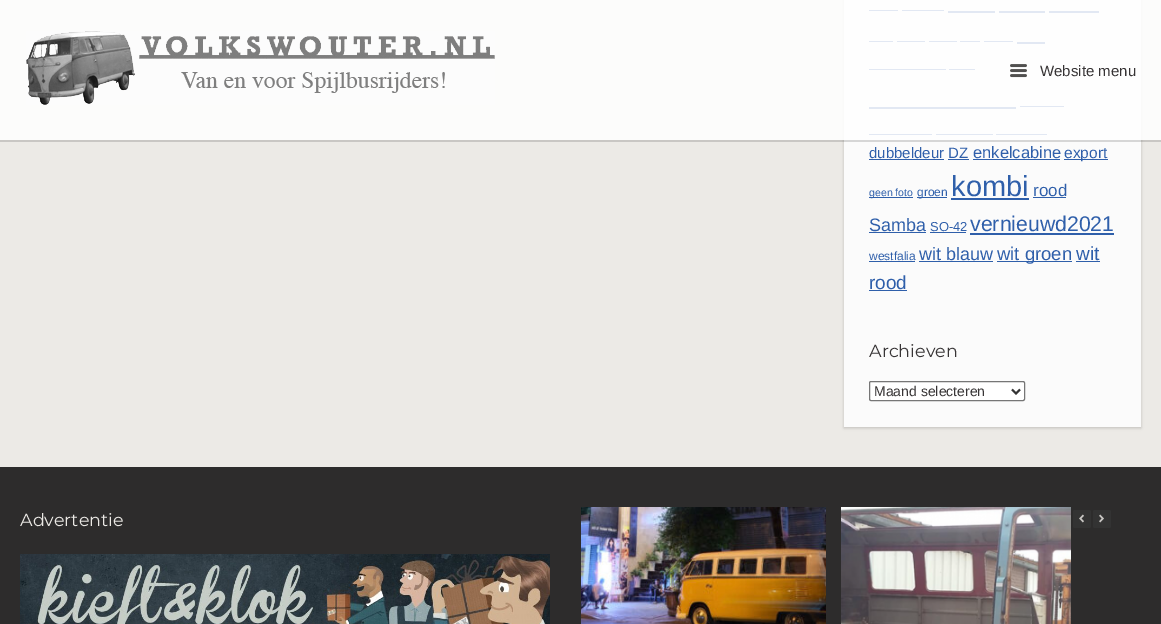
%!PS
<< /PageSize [1161 624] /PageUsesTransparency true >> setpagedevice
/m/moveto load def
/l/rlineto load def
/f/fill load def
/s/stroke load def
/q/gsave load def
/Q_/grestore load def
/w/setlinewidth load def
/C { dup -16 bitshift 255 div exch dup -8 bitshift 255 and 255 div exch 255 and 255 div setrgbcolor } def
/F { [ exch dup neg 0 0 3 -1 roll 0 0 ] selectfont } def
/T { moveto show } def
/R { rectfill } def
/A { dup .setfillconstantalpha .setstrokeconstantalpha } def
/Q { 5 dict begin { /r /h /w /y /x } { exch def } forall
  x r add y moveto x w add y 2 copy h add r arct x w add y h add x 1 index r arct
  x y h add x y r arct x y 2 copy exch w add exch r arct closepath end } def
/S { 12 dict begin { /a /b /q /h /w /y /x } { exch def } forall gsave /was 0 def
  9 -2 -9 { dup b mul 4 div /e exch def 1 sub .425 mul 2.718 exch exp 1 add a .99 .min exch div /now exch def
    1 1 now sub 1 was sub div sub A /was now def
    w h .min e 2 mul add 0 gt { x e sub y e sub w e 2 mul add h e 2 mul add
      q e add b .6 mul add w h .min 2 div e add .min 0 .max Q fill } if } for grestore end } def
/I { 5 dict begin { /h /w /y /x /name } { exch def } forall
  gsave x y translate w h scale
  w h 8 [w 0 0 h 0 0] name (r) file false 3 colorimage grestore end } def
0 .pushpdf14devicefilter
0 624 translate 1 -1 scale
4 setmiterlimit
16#ECEAE6 C
0 0 1161 624 R
16#000000 C
844 -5 297 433 0 1.5 .18 S
16#FBFBFB C
844 0 297 427 R
0.15 A
16#000000 C
0 140 1161 2 R
1 A
16#2F5FAA C
869 10 29 1 R
902 10 42 1 R
948 11 47 2 R
999 11 46 2 R
1049 11 50 2 R
869 41 24 1 R
897 41 28 1 R
929 41 28 1 R
960 41 20 1 R
984 41 29 1 R
1017 42 28 2 R
869 69 77 1 R
949 69 26 1 R
1020 106 44 1 R
869 107 147 2 R
869 134 63 1 R
936 134 57 1 R
996 134 51 1 R
0.86 A
16#FFFFFF C
0 0 1161 140 R
1 A
(1.rgb) 26 31 469 74 I
(2.rgb) 1010 64 17 14 I
/LiberationSans-Regular 15 F
16#373435 C
(Website menu) 1040 76 T
16#2F5FAA C
(dubbeldeur) 869 158 T
869 159 75 1 R
(DZ) 948 158 T
948 159 21 1 R
/LiberationSans-Regular 16.5 F
(enkelcabine) 973 158 T
973 159 87 1 R
1064 159 44 1 R
/LiberationSans-Regular 15.5 F
(export) 1064 158 T
869 197 44 1 R
/LiberationSans-Regular 10.5 F
(geen foto) 869 196 T
917 197 30 1 R
/LiberationSans-Regular 12 F
(groen) 917 196 T
/LiberationSans-Regular 29 F
(kombi) 951 196 T
951 198 78 2 R
/LiberationSans-Regular 17 F
(rood) 1033 196 T
1033 197 33 1 R
/LiberationSans-Regular 18 F
(Samba) 869 231 T
869 232 57 1 R
/LiberationSans-Regular 13 F
(SO-42) 930 231 T
930 232 36 1 R
/LiberationSans-Regular 21.25 F
(vernieuwd2021) 970 231 T
970 233 144 2 R
/LiberationSans-Regular 12 F
(westfalia) 869 260 T
869 261 46 1 R
/LiberationSans-Regular 18 F
(wit blauw) 919 260 T
919 261 74 1 R
997 261 75 1 R
/LiberationSans-Regular 18.5 F
(wit groen) 997 260 T
/LiberationSans-Regular 19 F
(wit) 1076 260 T
1076 261 24 1 R
(rood) 869 289 T
869 290 38 1 R
/Montserrat-Thin 17.5 F
16#373435 C
(Archieven) 869 357 T
16#FFFFFF C
869.5 381.5 155 19 1.5 Q q f Q_
16#767676 C
s
16#333333 C
2 w
1012 389.5 m 4 4 l 4 -4 l s
/LiberationSans-Regular 14 F
16#373435 C
(Maand selecteren) 874 396 T
16#2D2C2C C
0 467 1161 157 R
/Montserrat-Thin 17.5 F
16#EBE9E5 C
(Advertentie) 20 526 T
(3.rgb) 20 554 530 70 I
(4.rgb) 581 507 245 117 I
(5.rgb) 841 507 230 117 I
16#333333 C
1073 510 18 18 2 Q f
(6.rgb) 1079 514 5 9 I
1093 510 18 18 2 Q f
(7.rgb) 1099 514 5 9 I
.poppdf14devicefilter showpage
